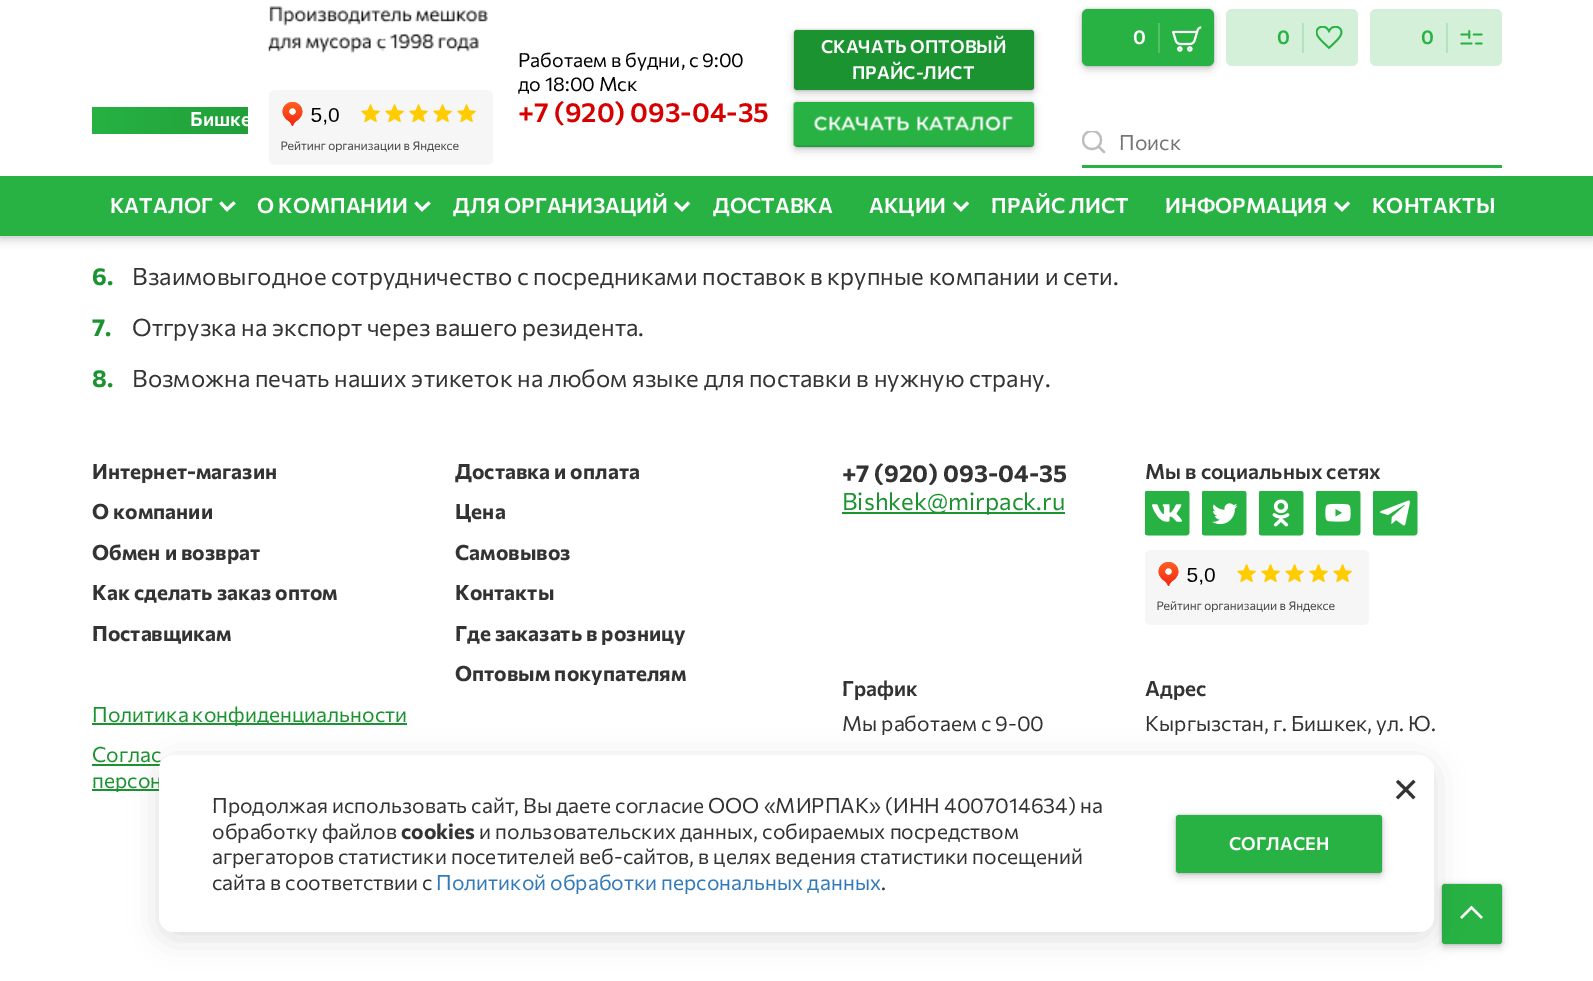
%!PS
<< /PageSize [1593 981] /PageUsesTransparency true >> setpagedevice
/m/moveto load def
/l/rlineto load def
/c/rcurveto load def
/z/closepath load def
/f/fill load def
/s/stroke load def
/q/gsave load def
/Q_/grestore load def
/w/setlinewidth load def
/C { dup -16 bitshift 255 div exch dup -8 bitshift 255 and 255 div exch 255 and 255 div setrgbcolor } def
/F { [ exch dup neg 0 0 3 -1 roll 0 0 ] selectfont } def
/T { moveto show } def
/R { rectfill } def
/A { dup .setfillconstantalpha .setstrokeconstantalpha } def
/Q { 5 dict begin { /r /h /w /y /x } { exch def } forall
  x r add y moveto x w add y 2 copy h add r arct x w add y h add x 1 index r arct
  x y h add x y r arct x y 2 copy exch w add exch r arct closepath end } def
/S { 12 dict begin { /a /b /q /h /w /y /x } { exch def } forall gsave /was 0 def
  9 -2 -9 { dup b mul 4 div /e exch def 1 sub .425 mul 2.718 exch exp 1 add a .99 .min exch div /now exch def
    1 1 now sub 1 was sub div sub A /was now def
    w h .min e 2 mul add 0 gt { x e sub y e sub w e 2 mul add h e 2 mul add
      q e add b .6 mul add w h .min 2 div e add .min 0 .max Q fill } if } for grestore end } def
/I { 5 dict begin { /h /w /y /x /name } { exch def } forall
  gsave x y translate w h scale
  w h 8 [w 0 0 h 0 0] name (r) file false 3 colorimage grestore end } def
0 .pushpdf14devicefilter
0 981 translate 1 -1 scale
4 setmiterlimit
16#FFFFFF C
0 0 1593 981 R
16#000000 C
0 2 1593 235 0 6 .3 S
16#FFFFFF C
0 0 1593 176 R
q 92 107 m 156 0 l 0 27 l -156 0 l z clip newpath
<< /ShadingType 2 /ColorSpace /DeviceRGB /Coords [362 122 91 118] /Extend [true true] /Function << /FunctionType 2 /Domain [0 1] /C0 [.11 .576 .192] /C1 [.153 .698 .263] /N 1 >> >> shfill Q_
q
92 42 156 92 rectclip
/Commissioner-SemiBold 19.5 F
(Бишке) 190 126 T
Q_
(1.rgb) 268 6 220 47 I
(2.rgb) 269 90 224 75 I
/Commissioner-Regular 19.5 F
16#000000 C
(Работаем в будни, с 9:00) 518 67 T
(до 18:00 Мск) 518 91 T
/Commissioner-SemiBold 27 F
16#D60000 C
(+7 \(920\) 093-04-35) 518 122 T
16#000000 C
794 30 240 60 3 1 .25 S
794 33 240 60 3 4 .2 S
16#1C9331 C
794 30 240 60 3 Q f
/Commissioner-SemiBold 18 F
16#FFFFFF C
(СКАЧАТЬ ОПТОВЫЙ) 821 53 T
(ПРАЙС-ЛИСТ) 852 79 T
16#000000 C
794 102 240 45 3 1 .25 S
794 105 240 45 3 4 .2 S
16#27B244 C
794 102 240 45 3 Q f
(3.rgb) 793 102 241 46 I
16#000000 C
1082 9 132 57 6 1 .25 S
1082 12 132 57 6 4 .2 S
16#27B243 C
1082 9 132 57 6 Q f
/Commissioner-SemiBold 19.5 F
16#FFFFFF C
(0) 1133 44 T
16#52C169 C
1158 23 2 30 R
(4.rgb) 1172 26 30 26 I
16#D4F0D9 C
1226 9 132 57 6 Q f
16#27B243 C
(0) 1277 44 T
16#B1E4BB C
1302 23 2 30 R
(5.rgb) 1316 26 27 24 I
16#D4F0D9 C
1370 9 132 57 6 Q f
16#27B243 C
(0) 1421 44 T
16#B1E4BB C
1446 23 2 30 R
(6.rgb) 1460 30 23 15 I
q
1082 131 24 24 rectclip
16#BDBDBD C
2.2 w
1 setlinecap
1 setlinejoin
1092 149 m 12 0 12 -18 0 -18 c -12 0 -12 18 0 18 c z s
Q_
16#BDBDBD C
2.2 w
1 setlinecap
1 setlinejoin
1099 147 m 5 5 l s
16#27B243 C
1082 165 420 3 R
/Commissioner-Regular 21 F
16#757575 C
(Поиск) 1119 150 T
16#27B243 C
0 176 1593 60 R
/Commissioner-SemiBold 21 F
16#FFFFFF C
(КАТАЛОГ) 110 213 T
3 w
0 setlinecap
0 setlinejoin
234.5 202.5 m -7.5 7 l -6.5 -7 l s
(О КОМПАНИИ) 257 213 T
429.5 202.5 m -7.5 7 l -6.5 -7 l s
(ДЛЯ ОРГАНИЗАЦИЙ) 453 213 T
689 202.5 m -7 7 l -7 -7 l s
(ДОСТАВКА) 713 213 T
(АКЦИИ) 869 213 T
968 202.5 m -7 7 l -7 -7 l s
(ПРАЙС ЛИСТ) 991 213 T
(ИНФОРМАЦИЯ) 1165 213 T
1349 202.5 m -7 7 l -7 -7 l s
(КОНТАКТЫ) 1372 213 T
/Commissioner-Bold 24 F
16#1C9331 C
(6.) 92 285 T
/Commissioner-Regular 24 F
16#333333 C
(Взаимовыгодное сотрудничество с посредниками поставок в крупные компании и сети.) 132 285 T
/Commissioner-Bold 24 F
16#1C9331 C
(7.) 92 336 T
/Commissioner-Regular 24 F
16#333333 C
(Отгрузка на экспорт через вашего резидента.) 132 336 T
/Commissioner-Bold 24 F
16#1C9331 C
(8.) 92 387 T
/Commissioner-Regular 24 F
16#333333 C
(Возможна печать наших этикеток на любом языке для поставки в нужную страну.) 132 387 T
/Commissioner-Bold 21 F
(Интернет-магазин) 92 479 T
(О компании) 92 519 T
(Обмен и возврат) 92 560 T
(Как сделать заказ оптом) 92 600 T
(Поставщикам) 92 641 T
16#1C9331 C
92 723 315 2 R
/Commissioner-Regular 21 F
(Политика конфиденциальности) 92 722 T
(Соглас) 92 762 T
92 764 69 2 R
92 789 67 2 R
(персон) 92 788 T
/Commissioner-Bold 21 F
16#333333 C
(Доставка и оплата) 455 479 T
(Цена) 455 519 T
(Самовывоз) 455 560 T
(Контакты) 455 600 T
(Где заказать в розницу) 455 641 T
(Оптовым покупателям) 455 681 T
/Commissioner-Bold 24 F
(+7 \(920\) 093-04-35) 842 482 T
16#1C9331 C
842 512 223 2 R
/Commissioner-Regular 24 F
(Bishkek@mirpack.ru) 842 510 T
/Commissioner-SemiBold 21 F
16#333333 C
(Мы в социальных сетях) 1145 479 T
(7.rgb) 1145 491 45 45 I
(8.rgb) 1202 491 45 45 I
(9.rgb) 1259 491 45 45 I
(10.rgb) 1316 491 45 45 I
(11.rgb) 1373 491 45 45 I
(12.rgb) 1145 550 224 75 I
(График) 842 696 T
/Commissioner-Regular 21 F
(Мы работаем с 9-00) 842 731 T
/Commissioner-SemiBold 21 F
(Адрес) 1145 696 T
/Commissioner-Regular 21 F
(Кыргызстан, г. Бишкек, ул. Ю.) 1145 731 T
16#000000 C
1442 884 60 60 3 1 .25 S
1442 887 60 60 3 4 .2 S
16#27B243 C
1442 884 60 60 3 Q f
16#FFFFFF C
2.2 w
1461 918 m 10.5 -10.5 l 10.5 10.5 l s
16#000000 C
159 762 1275 177 15 15 .12 S
16#FFFFFF C
159 755 1275 177 15 Q f
/Commissioner-Regular 45 F
16#333333 C
(×) 1393 803 T
/Commissioner-Regular 21 F
(Продолжая использовать сайт, Вы даете согласие ООО «МИРПАК» \(ИНН 4007014634\) на) 212 813 T
(обработку файлов) 212 839 T
/Commissioner-Bold 21 F
(cookies) 401 839 T
/Commissioner-Regular 21 F
(и пользовательских данных, собираемых посредством) 479 839 T
(агрегаторов статистики посетителей веб-сайтов, в целях ведения статистики посещений) 212 864 T
(сайта в соответствии с) 212 890 T
16#337AB7 C
(Политикой обработки персональных данных) 436 890 T
16#333333 C
(.) 881 890 T
16#000000 C
1176 815 206 58 3 1 .25 S
1176 818 206 58 3 4 .2 S
16#27B243 C
1176 815 206 58 3 Q f
/Commissioner-SemiBold 18 F
16#FFFFFF C
(СОГЛАСЕН) 1229 850 T
.poppdf14devicefilter showpage
